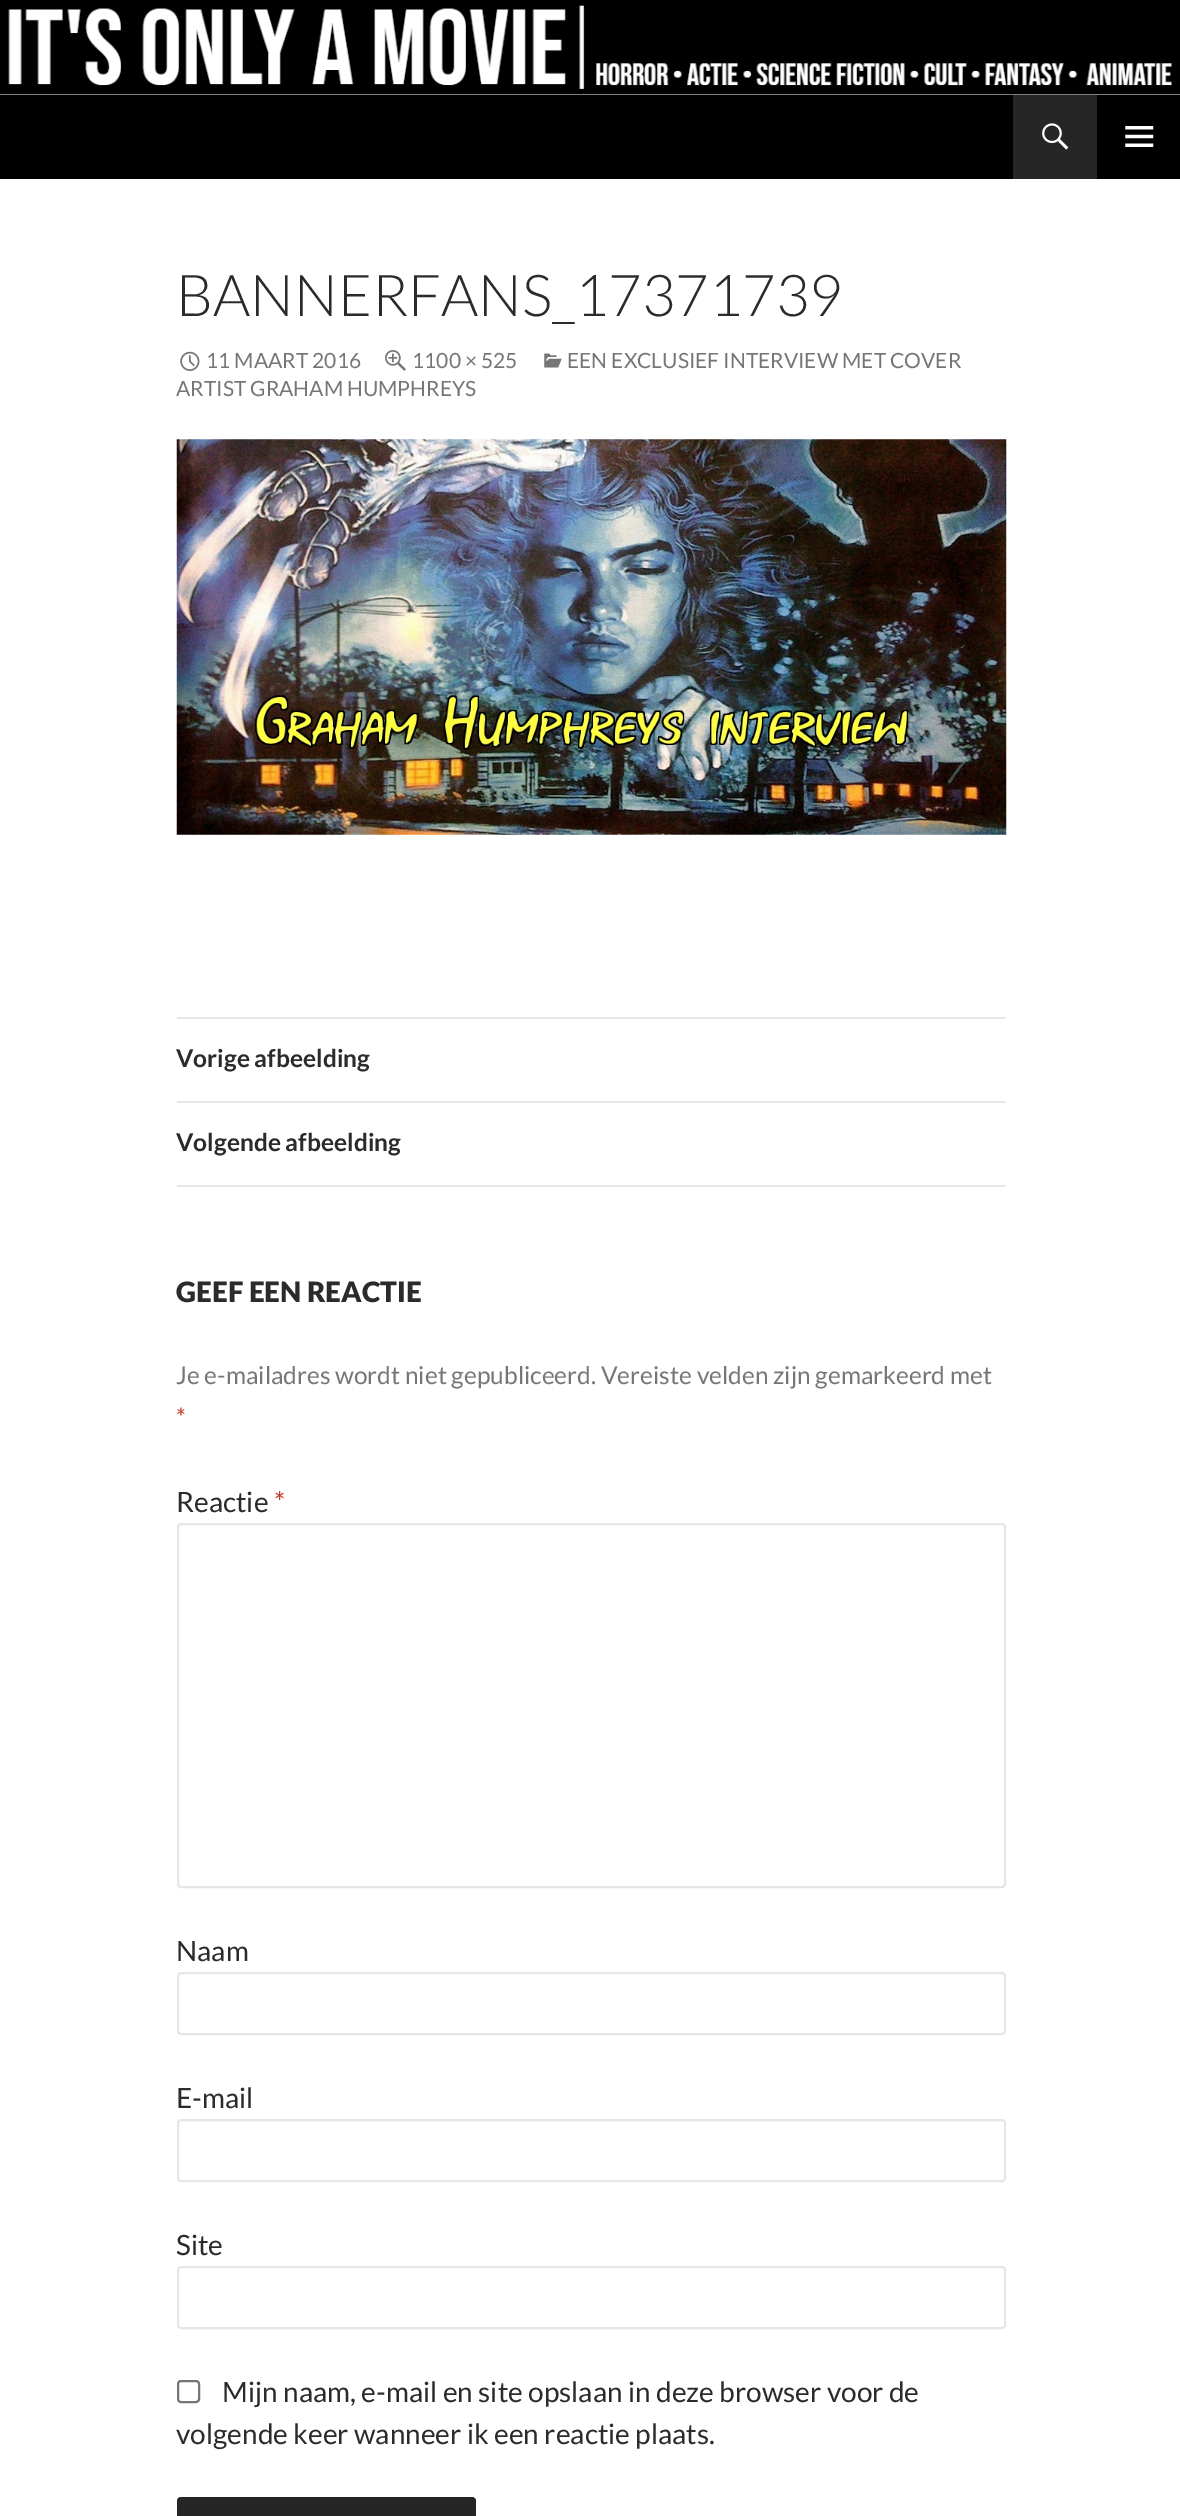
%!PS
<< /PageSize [1180 2516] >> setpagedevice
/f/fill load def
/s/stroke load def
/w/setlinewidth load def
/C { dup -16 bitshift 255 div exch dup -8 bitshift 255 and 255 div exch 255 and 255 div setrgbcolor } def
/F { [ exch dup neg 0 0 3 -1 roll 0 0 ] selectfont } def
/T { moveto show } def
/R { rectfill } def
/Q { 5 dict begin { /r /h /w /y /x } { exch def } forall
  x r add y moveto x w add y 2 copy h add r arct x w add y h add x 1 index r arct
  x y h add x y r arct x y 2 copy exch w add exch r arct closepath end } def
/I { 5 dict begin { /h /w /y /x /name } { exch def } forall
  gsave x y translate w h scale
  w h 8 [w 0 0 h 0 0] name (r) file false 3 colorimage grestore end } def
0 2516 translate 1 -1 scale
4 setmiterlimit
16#FFFFFF C
0 0 1180 2516 R
(1.rgb) 0 0 1180 95 I
16#000000 C
0 95 1180 84 R
16#262626 C
1013 95 84 84 R
(2.rgb) 1042 123 27 27 I
(3.rgb) 1125 126 29 21 I
/Lato-Light 57.75 F
16#2B2B2B C
(BANNERFANS_17371739) 176 316 T
(4.rgb) 544 353 18 15 I
/Lato-Regular 21 F
16#767676 C
(EEN EXCLUSIEF INTERVIEW MET COVER) 567 368 T
(ARTIST GRAHAM HUMPHREYS) 176 396 T
(5.rgb) 180 351 20 20 I
(11 MAART 2016) 206 368 T
(6.rgb) 385 350 21 21 I
(1100 × 525) 412 368 T
(7.rgb) 176 439 831 396 I
16#E6E6E6 C
177 1017 829 2 R
177 1101 829 2 R
/Lato-Bold 24.5 F
16#2B2B2B C
(Vorige afbeelding) 176 1067 T
16#E6E6E6 C
177 1185 829 2 R
16#2B2B2B C
(Volgende afbeelding) 176 1151 T
/Lato-Black 28 F
(GEEF EEN REACTIE) 176 1302 T
/Lato-Regular 24.5 F
16#767676 C
(Je e-mailadres wordt niet gepubliceerd. Vereiste velden zijn gemarkeerd met) 176 1384 T
16#C0392B C
(*) 176 1426 T
/Lato-Regular 28 F
16#2B2B2B C
(Reactie) 176 1512 T
16#C0392B C
(*) 274 1512 T
16#E6E6E6 C
2 w
178 1524 827 363 3 Q s
16#2B2B2B C
(Naam) 176 1961 T
16#E6E6E6 C
178 1973 827 61 3 Q s
16#2B2B2B C
(E-mail) 176 2108 T
16#E6E6E6 C
178 2120 827 61 3 Q s
16#2B2B2B C
(Site) 176 2255 T
16#E6E6E6 C
178 2267 827 61 3 Q s
16#767676 C
178 2381 21 21 3 Q s
16#2B2B2B C
(Mijn naam, e-mail en site opslaan in deze browser voor de) 222 2402 T
(volgende keer wanneer ik een reactie plaats.) 176 2444 T
16#262626 C
177 2497 299 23 4 Q f
showpage
